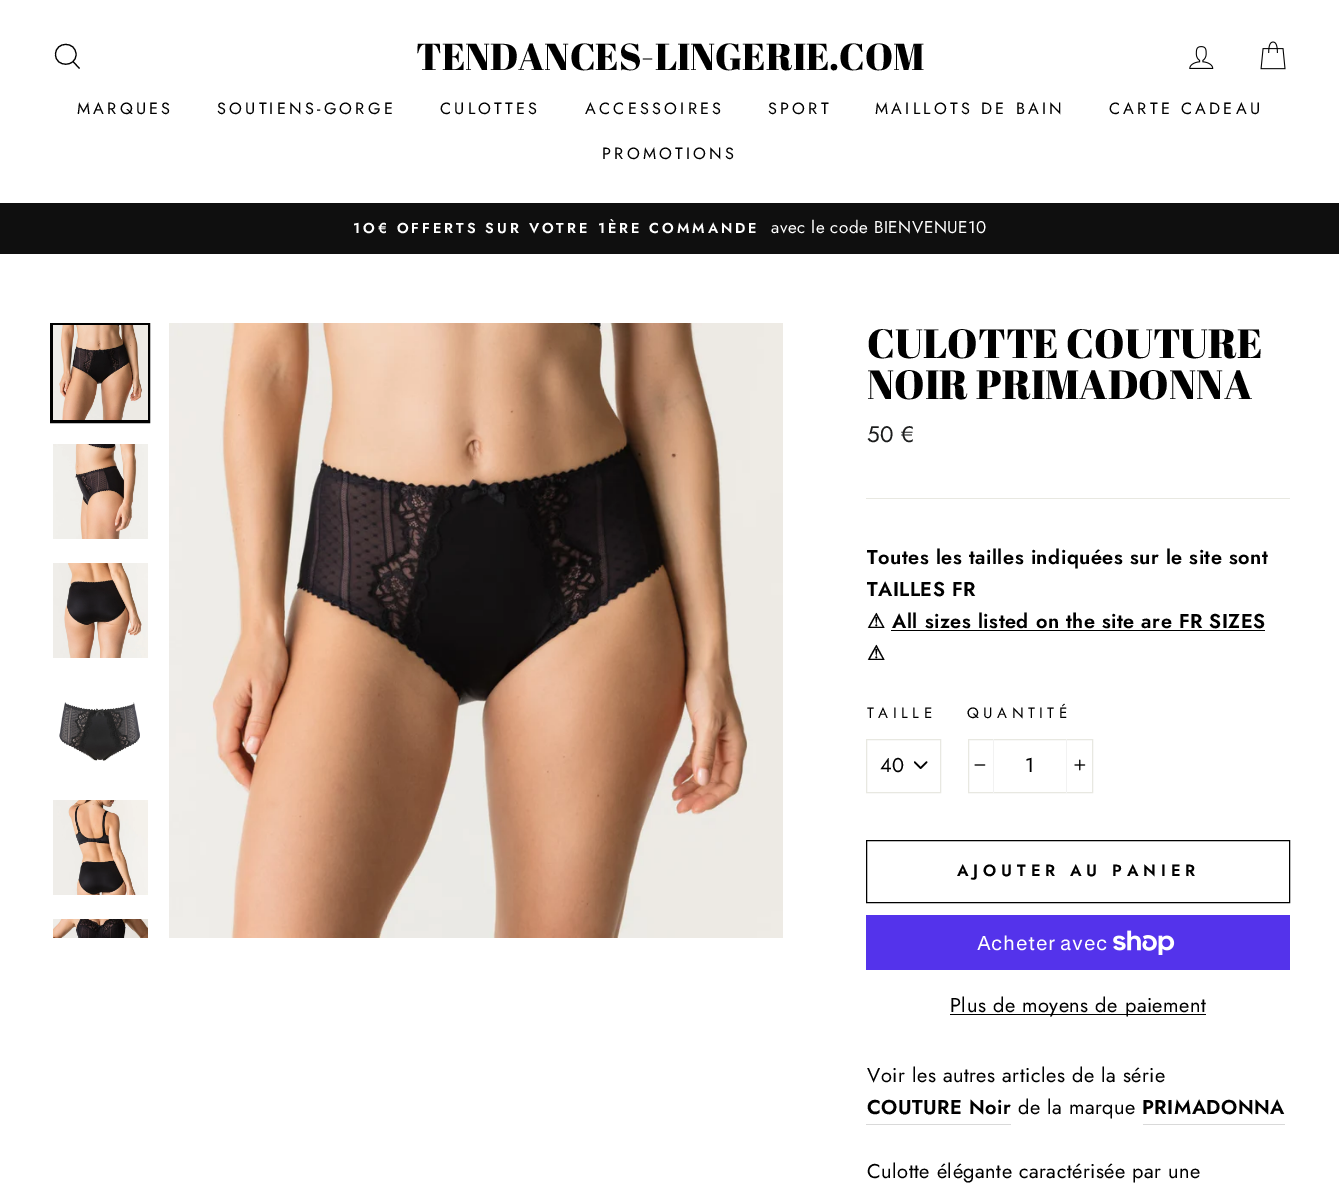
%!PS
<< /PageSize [1339 1197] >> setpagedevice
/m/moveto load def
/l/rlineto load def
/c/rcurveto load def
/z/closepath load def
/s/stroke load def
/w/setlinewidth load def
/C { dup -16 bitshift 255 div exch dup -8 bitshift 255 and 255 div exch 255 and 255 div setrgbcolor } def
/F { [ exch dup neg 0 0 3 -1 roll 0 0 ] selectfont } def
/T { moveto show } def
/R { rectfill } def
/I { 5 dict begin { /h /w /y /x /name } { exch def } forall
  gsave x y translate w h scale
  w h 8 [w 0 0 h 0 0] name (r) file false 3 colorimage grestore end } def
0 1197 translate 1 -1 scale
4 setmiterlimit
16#FFFFFF C
0 0 1339 1197 R
16#000000 C
1.1 w
76 54.5 m 0 13 -20.5 13 -20.5 0 c 0 -13.5 20.5 -13.5 20.5 0 c z 79.5 68.5 m -6.5 -7 l s
/AbrilFatface-Regular 37.5 F
(TENDANCES-LINGERIE.COM) 416 70 T
(1.rgb) 1189 46 25 23 I
(2.rgb) 1260 41 26 29 I
/Jost-Regular 16.25 F
77 114 m 3.25 0 (MARQUES) ashow
217 114 m 3.25 0 (SOUTIENS-GORGE) ashow
440 114 m 3.25 0 (CULOTTES) ashow
585 114 m 3.25 0 (ACCESSOIRES) ashow
768 114 m 3.25 0 (SPORT) ashow
875 114 m 3.25 0 (MAILLOTS DE BAIN) ashow
1109 114 m 3.25 0 (CARTE CADEAU) ashow
602 159 m 3.25 0 (PROMOTIONS) ashow
16#0F0F0F C
0 203 1339 51 R
/Jost-SemiBold 14.45 F
16#FFFFFF C
353 233 m 2.9 0 (1O€ OFFERTS SUR VOTRE 1ÈRE COMMANDE) ashow
/Jost-Regular 17 F
771 233 m .5 0 (avec le code BIENVENUE10) ashow
16#000000 C
3 w
51.5 324.5 97 97 rectstroke
(3.rgb) 53 325 95 95 I
(4.rgb) 53 444 95 95 I
(5.rgb) 53 563 95 95 I
(6.rgb) 59 702 81 59 I
(7.rgb) 53 800 95 95 I
(8.rgb) 53 919 95 19 I
(9.rgb) 169 323 614 615 I
/AbrilFatface-Regular 40.75 F
(CULOTTE COUTURE) 867 358 T
(NOIR PRIMADONNA) 867 399 T
/Jost-Regular 22.5 F
16#1C1D1D C
867 442 m .5 0 (50 €) ashow
16#E8E8E1 C
866 498 424 1 R
/Jost-SemiBold 20 F
16#000000 C
867 564 m .5 0 (Toutes les tailles indiquées sur le site sont) ashow
867 596 m .5 0 (TAILLES FR) ashow
/DejaVuSans-Bold 20 F
867 628 m .5 0 (⚠) ashow
/Jost-SemiBold 20 F
892 628 m .5 0 (All sizes listed on the site are FR SIZES) ashow
891 630 374 1 R
/DejaVuSans-Bold 20 F
867 660 m .5 0 (⚠) ashow
/Jost-Regular 15 F
867 718 m 4.5 0 (TAILLE) ashow
(10.rgb) 914 761 14 8 I
16#E8E8E1 C
1 w
866.5 739.5 74 53 rectstroke
/Jost-Regular 20 F
16#000000 C
880 772 m .5 0 (40) ashow
/Jost-Regular 15 F
967 718 m 4.5 0 (QUANTITÉ) ashow
16#E8E8E1 C
968.5 739.5 124 53 rectstroke
16#F2F2F2 C
993 739 1 54 R
(11.rgb) 974 764 12 2 I
/Jost-Regular 20 F
16#000000 C
1025 772 m .5 0 (1) ashow
16#F2F2F2 C
1066 739 1 54 R
(12.rgb) 1074 759 12 12 I
16#000000 C
866.5 840.5 423 62 rectstroke
/Jost-SemiBold 16.25 F
957 876 m 4.9 0 (AJOUTER AU PANIER) ashow
16#5433EB C
866 915 424 55 R
/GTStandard-Regular 20 F
16#FFFFFF C
977 950 m .5 0 (Acheter avec) ashow
(13.rgb) 1113 930 62 25 I
16#000000 C
950 1014 256 1 R
/Jost-Regular 20 F
950 1012 m .5 0 (Plus de moyens de paiement) ashow
867 1082 m .5 0 (Voir les autres articles de la série) ashow
16#D9D9D9 C
866 1124 145 1 R
/Jost-SemiBold 20 F
16#000000 C
867 1114 m .5 0 (COUTURE Noir) ashow
/Jost-Regular 20 F
1018 1114 m .5 0 (de la marque) ashow
16#D9D9D9 C
1143 1124 142 1 R
/Jost-SemiBold 20 F
16#000000 C
1142 1114 m .5 0 (PRIMADONNA) ashow
/Jost-Regular 20 F
867 1178 m .5 0 (Culotte élégante caractérisée par une) ashow
showpage
